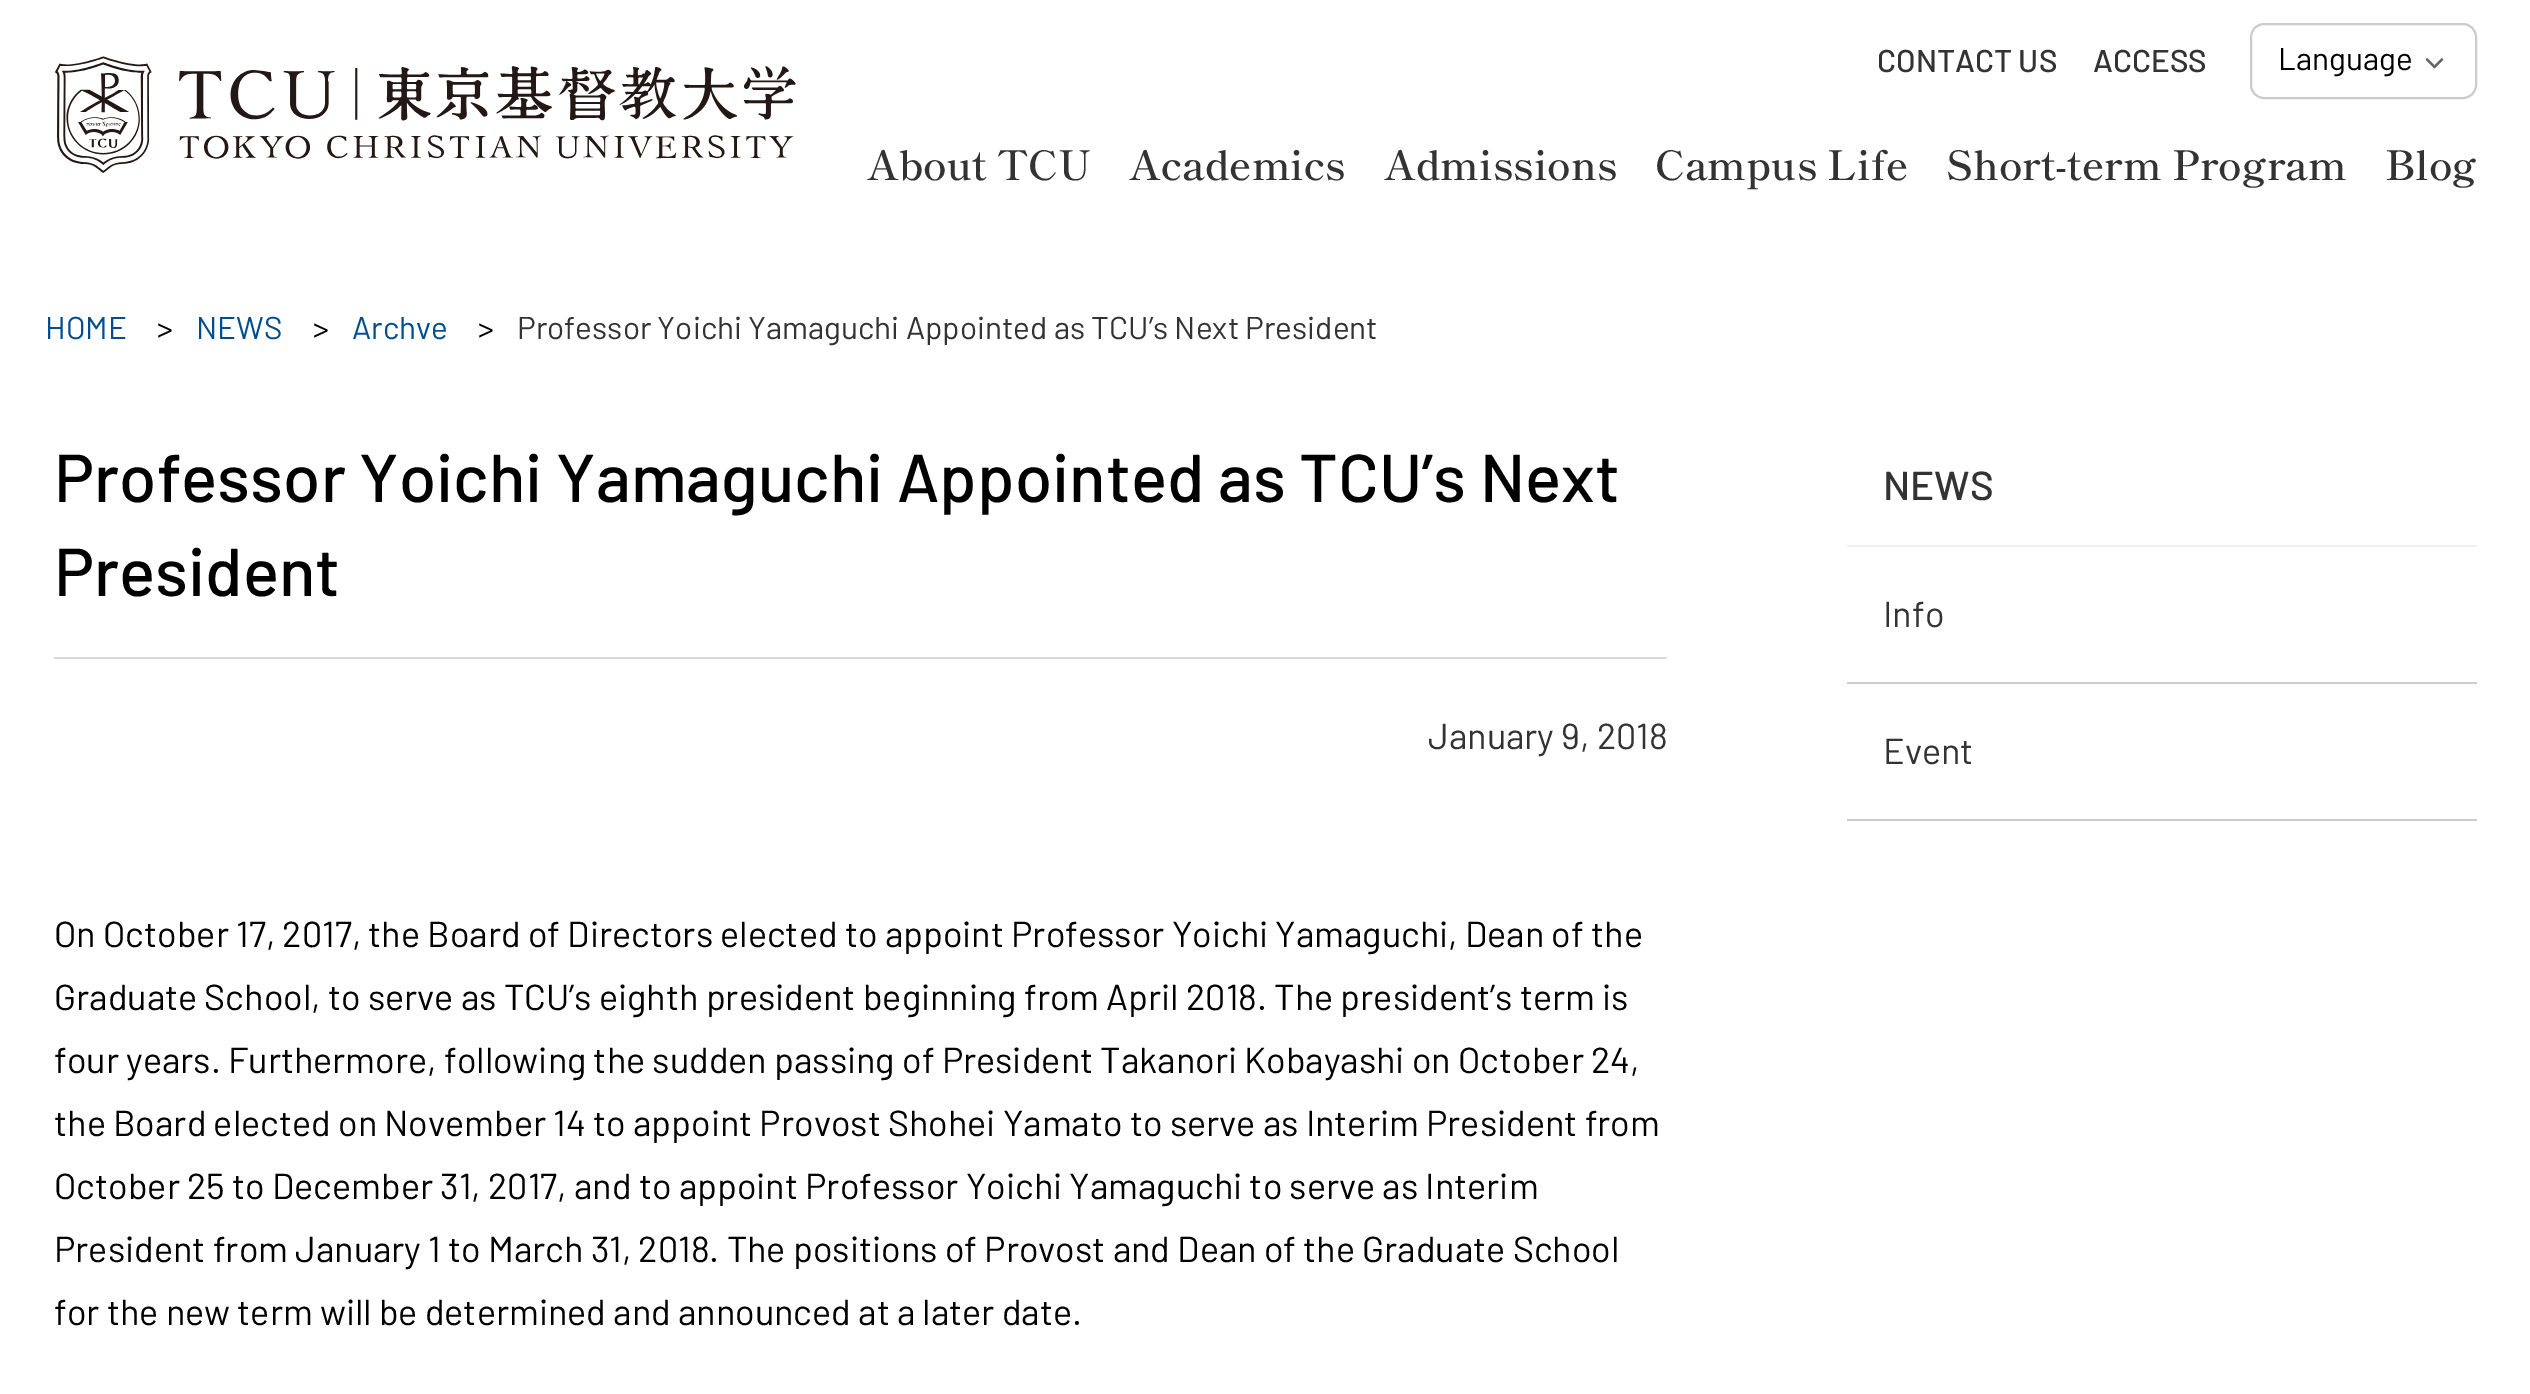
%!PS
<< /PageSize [2530 1394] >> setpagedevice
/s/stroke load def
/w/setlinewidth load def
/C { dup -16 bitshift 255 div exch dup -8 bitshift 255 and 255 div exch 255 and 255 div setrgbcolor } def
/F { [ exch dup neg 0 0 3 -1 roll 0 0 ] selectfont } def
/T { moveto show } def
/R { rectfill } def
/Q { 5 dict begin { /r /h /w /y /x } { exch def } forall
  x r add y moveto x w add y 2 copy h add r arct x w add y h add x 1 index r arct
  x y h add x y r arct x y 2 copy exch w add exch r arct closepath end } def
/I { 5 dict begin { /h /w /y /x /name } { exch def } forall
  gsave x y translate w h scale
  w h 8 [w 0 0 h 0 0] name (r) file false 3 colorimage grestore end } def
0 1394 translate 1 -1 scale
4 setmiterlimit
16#FFFFFF C
0 0 2530 1394 R
(1.rgb) 55 56 741 117 I
/Barlow-Medium 31.5 F
16#333333 C
(CONTACT US) 1877 72 T
(ACCESS) 2093 72 T
16#CCCCCC C
2 w
2251 24 225 74 13 Q s
/Barlow-Regular 31.5 F
16#000000 C
(Language) 2278 70 T
(2.rgb) 2425 58 19 11 I
/ShipporiMincho-SemiBold 40.5 F
16#333333 C
(About TCU) 867 180 T
(Academics) 1129 180 T
(Admissions) 1384 180 T
(Campus Life) 1655 180 T
(Short-term Program) 1946 180 T
(Blog) 2385 180 T
/Barlow-Regular 31.5 F
16#004D90 C
(HOME) 45 339 T
16#000000 C
(>) 157 339 T
16#004D90 C
(NEWS) 196 339 T
16#000000 C
(>) 313 339 T
16#004D90 C
(Archve) 352 339 T
16#000000 C
(>) 478 339 T
16#333333 C
(Professor Yoichi Yamaguchi Appointed as TCU’s Next President) 517 339 T
16#DADADA C
54 657 1613 2 R
/Barlow-Medium 67.5 F
16#000000 C
(Professor Yoichi Yamaguchi Appointed as TCU’s Next) 54 502 T
(President) 54 596 T
/Barlow-Regular 36 F
16#333333 C
(January 9, 2018) 1428 749 T
16#000000 C
(On October 17, 2017, the Board of Directors elected to appoint Professor Yoichi Yamaguchi, Dean of the) 54 947 T
(Graduate School, to serve as TCU’s eighth president beginning from April 2018. The president’s term is) 54 1010 T
(four years. Furthermore, following the sudden passing of President Takanori Kobayashi on October 24,) 54 1073 T
(the Board elected on November 14 to appoint Provost Shohei Yamato to serve as Interim President from) 54 1136 T
(October 25 to December 31, 2017, and to appoint Professor Yoichi Yamaguchi to serve as Interim) 54 1199 T
(President from January 1 to March 31, 2018. The positions of Provost and Dean of the Graduate School) 54 1262 T
(for the new term will be determined and announced at a later date.) 54 1325 T
16#F1F1F1 C
1847 545 630 2 R
/Barlow-Medium 40.5 F
16#333333 C
(NEWS) 1883 500 T
16#CCCCCC C
1847 682 630 2 R
/Barlow-Regular 36 F
16#333333 C
(Info) 1883 627 T
16#CCCCCC C
1847 819 630 2 R
16#333333 C
(Event) 1883 764 T
showpage
